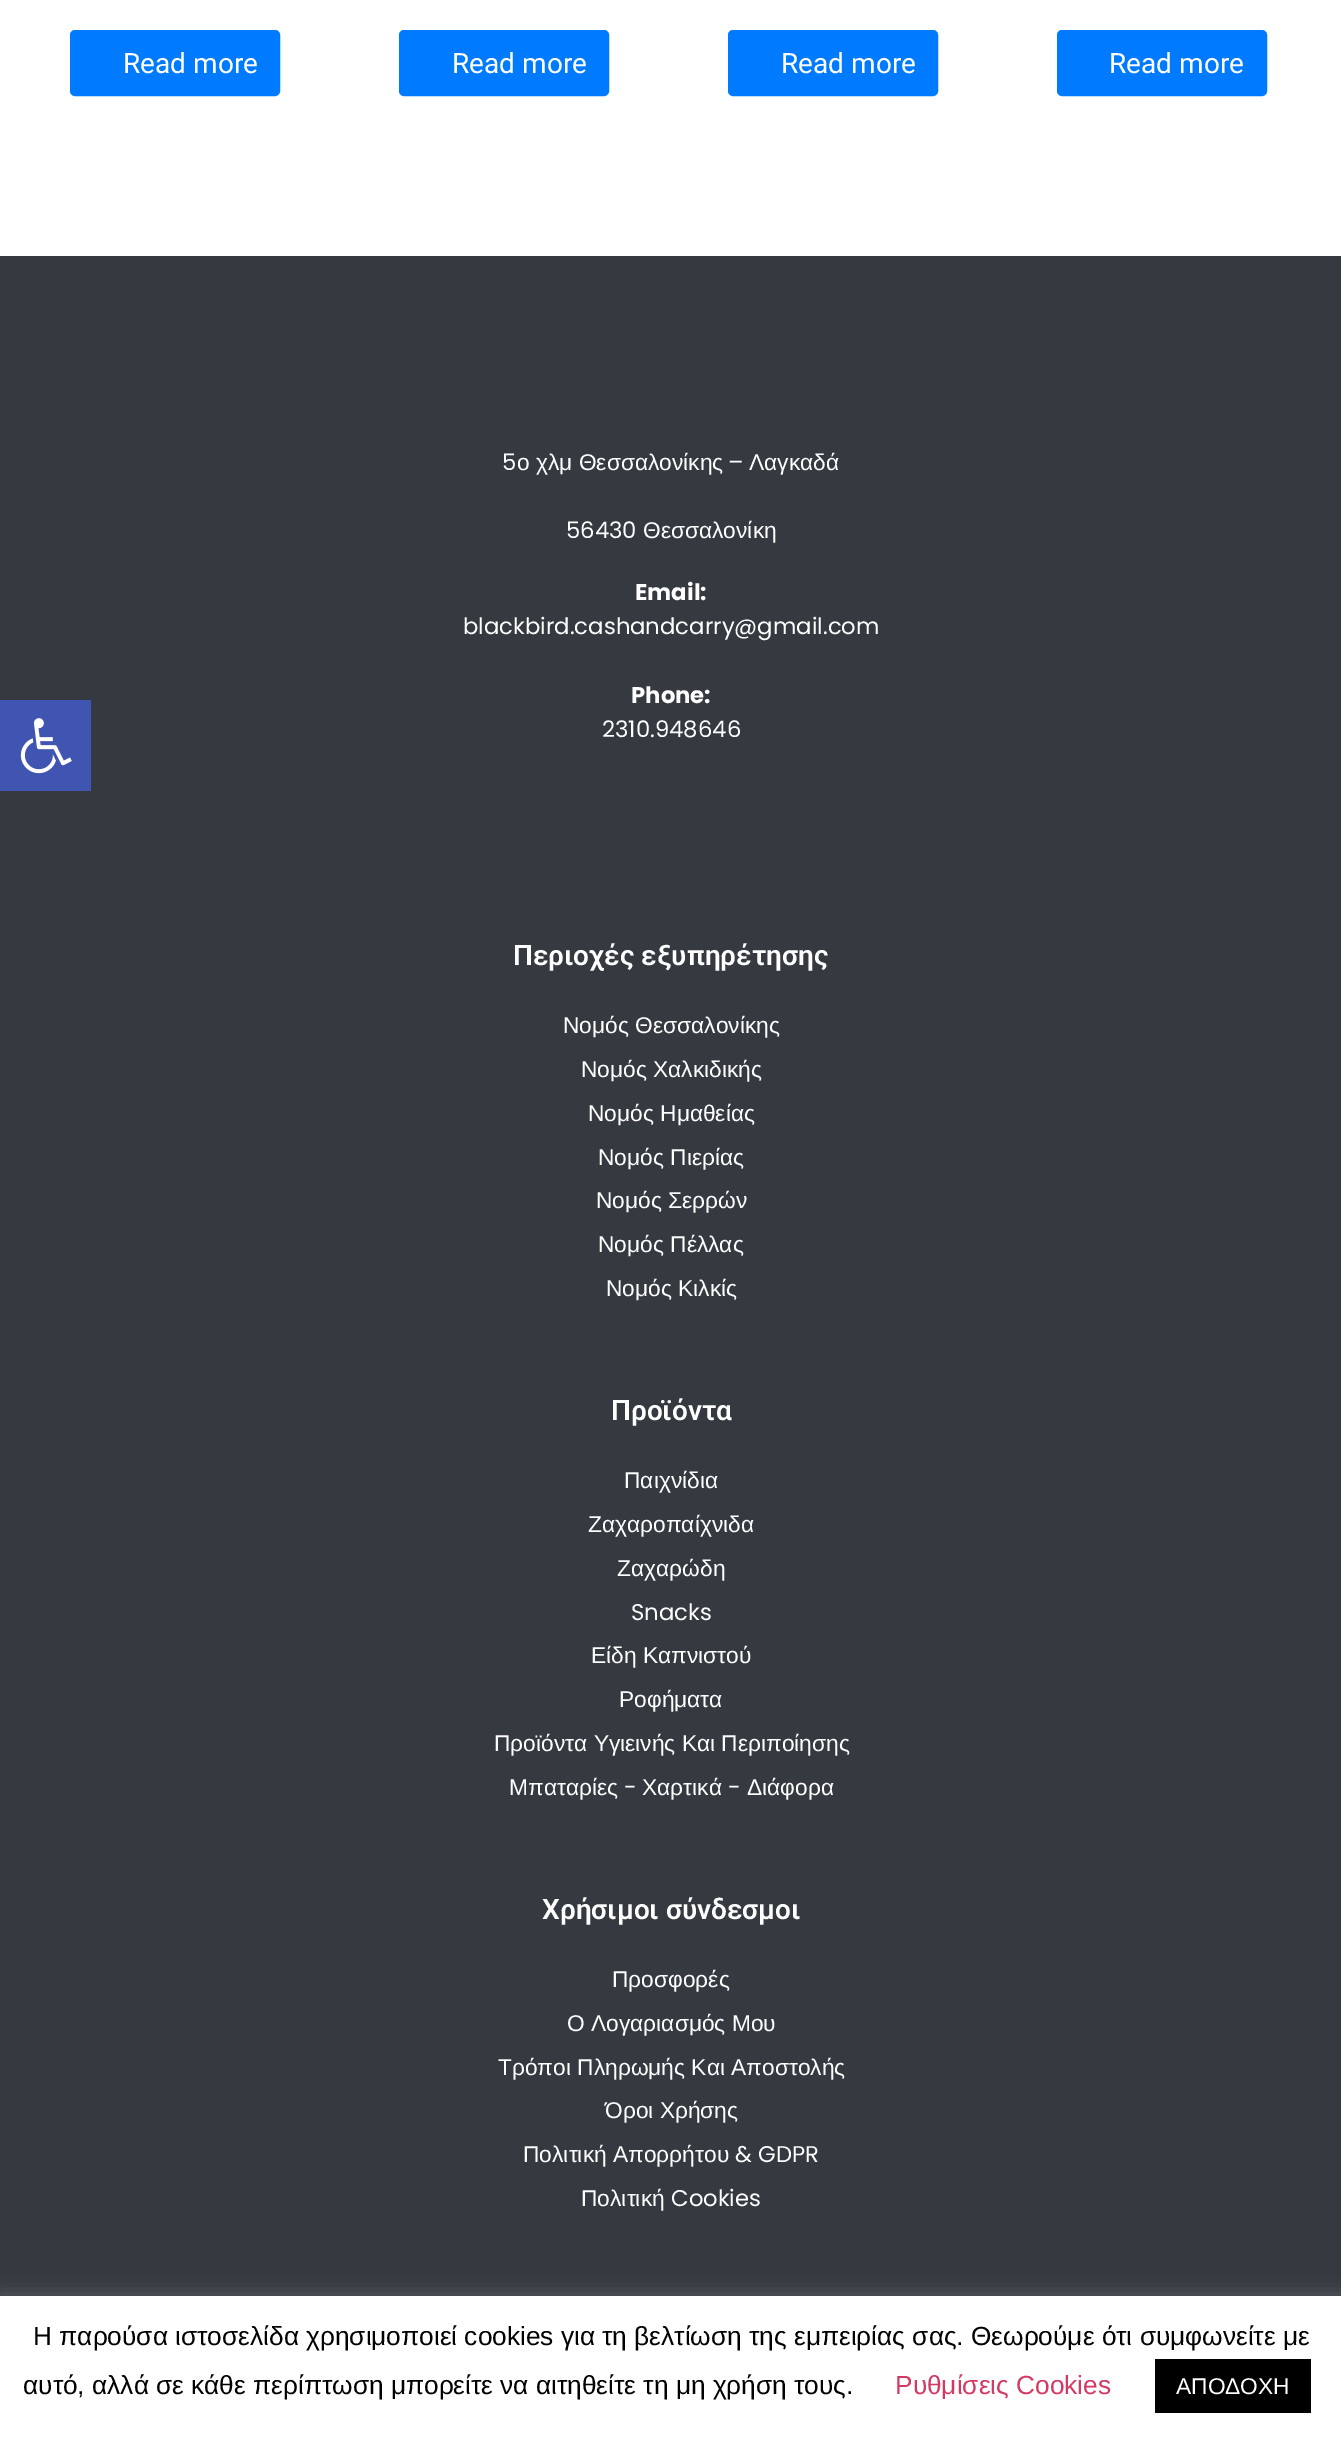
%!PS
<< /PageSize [1341 2443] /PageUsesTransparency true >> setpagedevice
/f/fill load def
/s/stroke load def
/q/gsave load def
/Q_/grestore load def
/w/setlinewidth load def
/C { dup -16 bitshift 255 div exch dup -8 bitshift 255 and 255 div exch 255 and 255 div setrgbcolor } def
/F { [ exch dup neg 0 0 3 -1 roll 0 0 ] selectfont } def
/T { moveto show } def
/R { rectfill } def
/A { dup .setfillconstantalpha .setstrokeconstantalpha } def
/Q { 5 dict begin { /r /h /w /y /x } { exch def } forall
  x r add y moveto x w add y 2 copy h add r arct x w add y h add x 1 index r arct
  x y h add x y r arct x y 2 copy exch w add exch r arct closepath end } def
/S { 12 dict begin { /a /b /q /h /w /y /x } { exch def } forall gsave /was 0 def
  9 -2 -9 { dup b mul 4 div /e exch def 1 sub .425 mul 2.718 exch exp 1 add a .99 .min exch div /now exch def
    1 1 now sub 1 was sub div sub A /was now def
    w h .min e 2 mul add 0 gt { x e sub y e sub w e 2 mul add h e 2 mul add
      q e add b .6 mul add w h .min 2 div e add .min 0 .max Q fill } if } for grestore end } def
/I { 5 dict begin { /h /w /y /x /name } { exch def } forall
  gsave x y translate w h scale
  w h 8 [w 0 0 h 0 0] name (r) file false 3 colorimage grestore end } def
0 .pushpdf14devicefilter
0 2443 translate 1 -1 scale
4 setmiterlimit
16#FFFFFF C
0 0 1341 2443 R
16#343A40 C
0 256 1341 2040 R
16#4054B2 C
0 700 91 91 R
(1.rgb) 20 718 52 56 I
16#007BFF C
71 31 208 64 4 Q q f Q_
2 w
s
/Roboto-Regular 28 F
16#FFFFFF C
(Read more) 123 73 T
16#007BFF C
400 31 208 64 4 Q q f Q_
s
16#FFFFFF C
(Read more) 452 73 T
16#007BFF C
729 31 208 64 4 Q q f Q_
s
16#FFFFFF C
(Read more) 781 73 T
16#007BFF C
1058 31 208 64 4 Q q f Q_
s
16#FFFFFF C
(Read more) 1109 73 T
/Poppins-Regular 22.75 F
(5) 502 470 T
/LiberationSans-Regular 22.75 F
(ο χλμ Θεσσαλονίκης) 517 470 T
/Poppins-Regular 22.75 F
(–) 728 470 T
/LiberationSans-Regular 22.75 F
(Λαγκαδά) 749 470 T
/Poppins-Regular 22.75 F
(56430) 566 538 T
/LiberationSans-Regular 22.75 F
(Θεσσαλονίκη) 643 538 T
/Poppins-Bold 22.75 F
(Email:) 635 600 T
/Poppins-Regular 22.75 F
(blackbird.cashandcarry@gmail.com) 463 634 T
/Poppins-Bold 22.75 F
(Phone:) 631 703 T
/Poppins-Regular 22.75 F
(2310.948646) 602 737 T
/Roboto-SemiBold 28 F
(Περιοχές εξυπηρέτησης) 513 965 T
/LiberationSans-Regular 22.75 F
(Νομός Θεσσαλονίκης) 563 1033 T
(Νομός Χαλκιδικής) 581 1077 T
(Νομός Ημαθείας) 588 1121 T
(Νομός Πιερίας) 598 1165 T
(Νομός Σερρών) 596 1208 T
(Νομός Πέλλας) 598 1252 T
(Νομός Κιλκίς) 606 1296 T
/Roboto-SemiBold 28 F
(Προϊόντα) 611 1420 T
/LiberationSans-Regular 22.75 F
(Παιχνίδια) 624 1488 T
(Ζαχαροπαίχνιδα) 588 1532 T
(Ζαχαρώδη) 617 1576 T
/Poppins-Regular 22.75 F
(Snacks) 631 1620 T
/LiberationSans-Regular 22.75 F
(Είδη Καπνιστού) 591 1663 T
(Ροφήματα) 619 1707 T
(Προϊόντα Υγιεινής Και Περιποίησης) 494 1751 T
(Μπαταρίες) 509 1795 T
/Poppins-Regular 22.75 F
(-) 624 1795 T
/LiberationSans-Regular 22.75 F
(Χαρτικά) 642 1795 T
/Poppins-Regular 22.75 F
(-) 728 1795 T
/LiberationSans-Regular 22.75 F
(Διάφορα) 747 1795 T
/Roboto-SemiBold 28 F
(Χρήσιμοι σύνδεσμοι) 542 1919 T
/LiberationSans-Regular 22.75 F
(Προσφορές) 612 1987 T
(Ο Λογαριασμός Μου) 567 2031 T
(Τρόποι Πληρωμής Και Αποστολής) 498 2075 T
(Όροι Χρήσης) 605 2118 T
(Πολιτική Απορρήτου) 523 2162 T
/Poppins-Regular 22.75 F
(& GDPR) 735 2162 T
/LiberationSans-Regular 22.75 F
(Πολιτική) 581 2206 T
/Poppins-Regular 22.75 F
(Cookies) 671 2206 T
16#ACABAB C
0 2294 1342 147 0 9 .3 S
16#FFFFFF C
0 2296 1341 147 R
/LiberationSans-Regular 26.25 F
16#000000 C
(Η παρούσα ιστοσελίδα χρησιμοποιεί cookies για τη βελτίωση της εμπειρίας σας. Θεωρούμε ότι συμφωνείτε με) 33 2345 T
(αυτό, αλλά σε κάθε περίπτωση μπορείτε να αιτηθείτε τη μη χρήση τους.) 23 2394 T
16#D33962 C
(Ρυθμίσεις Cookies) 895 2394 T
16#000000 C
1155 2359 156 54 R
/LiberationSans-Regular 22.75 F
16#FFFFFF C
(ΑΠΟΔΟΧΗ) 1176 2394 T
.poppdf14devicefilter showpage
